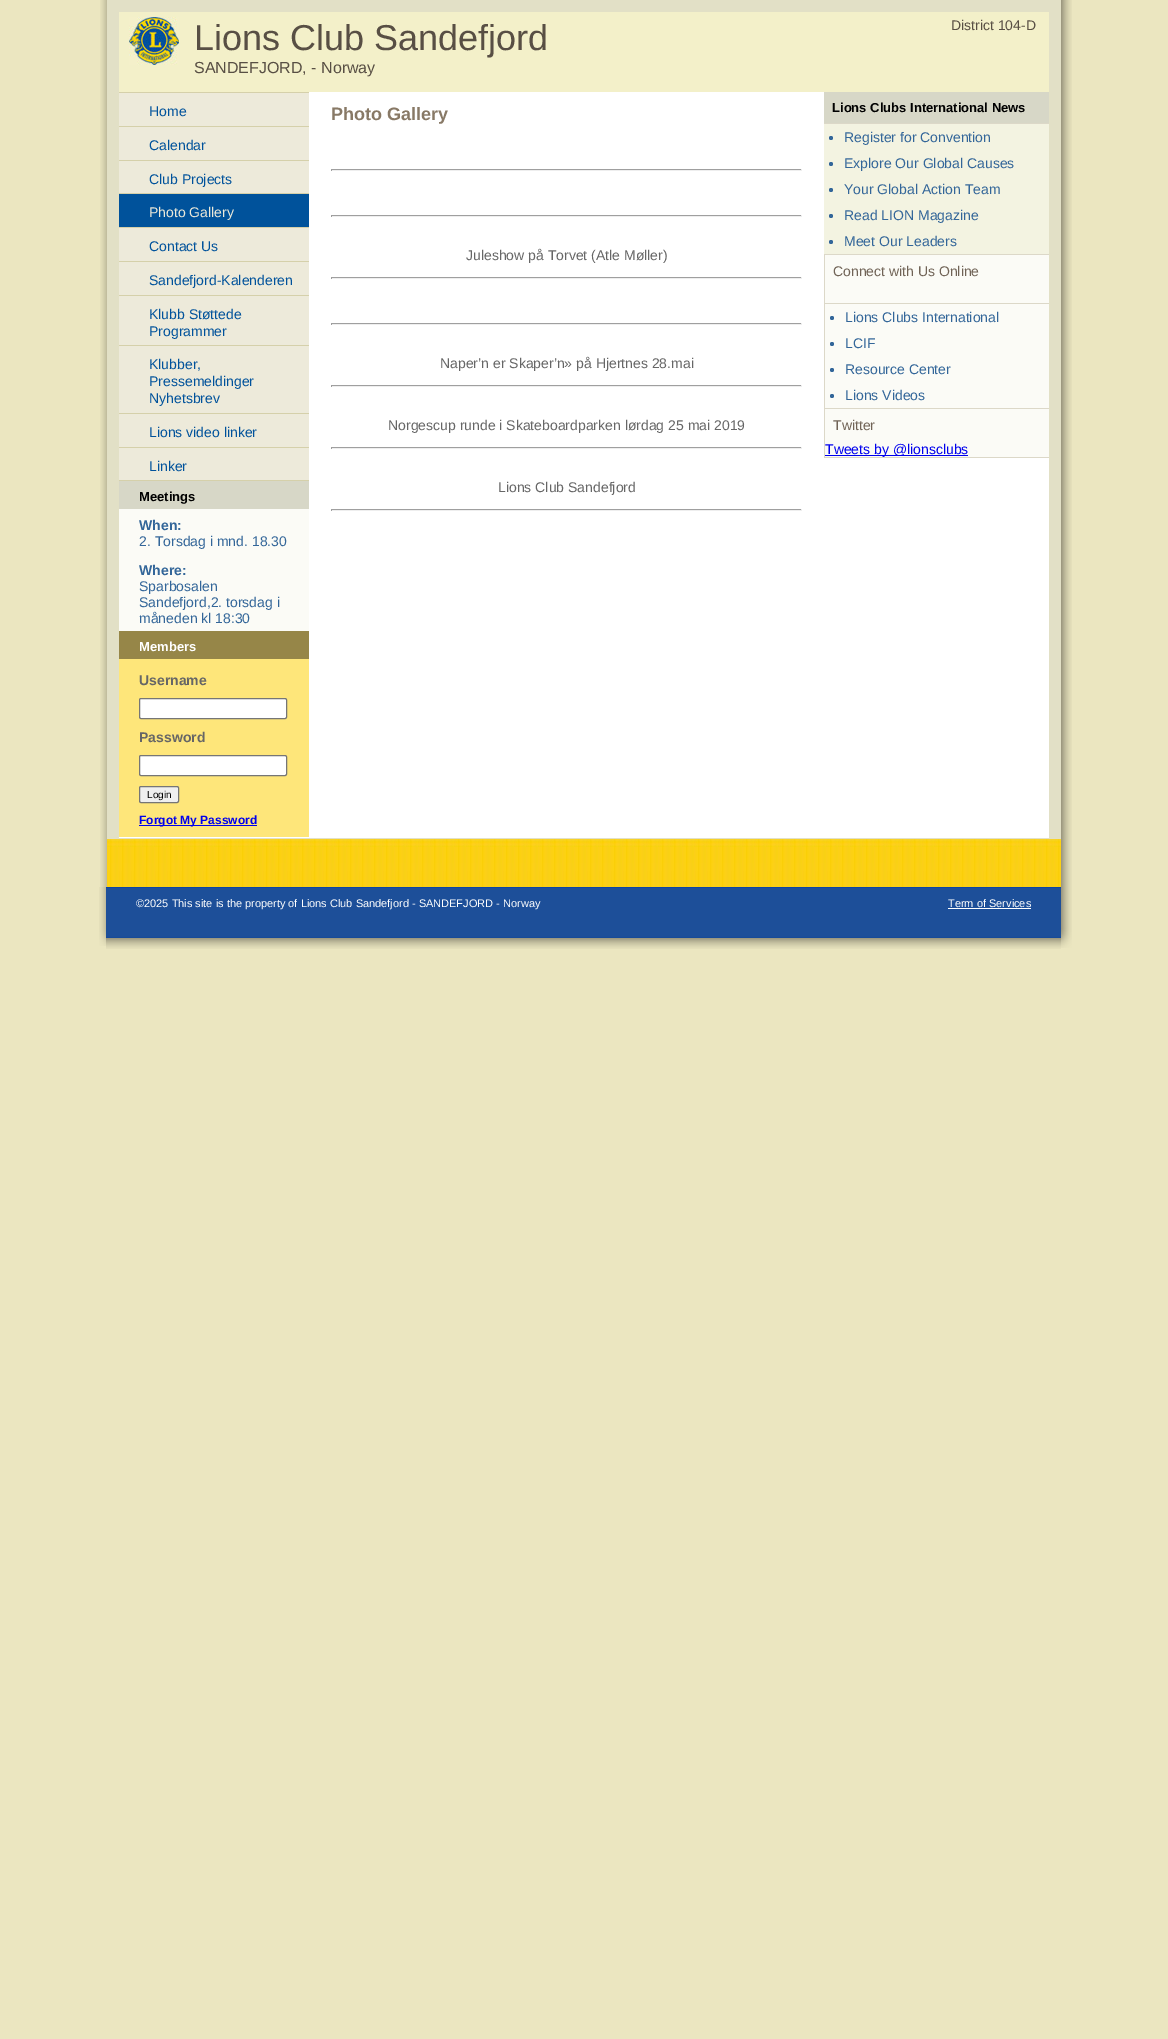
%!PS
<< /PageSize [1168 2039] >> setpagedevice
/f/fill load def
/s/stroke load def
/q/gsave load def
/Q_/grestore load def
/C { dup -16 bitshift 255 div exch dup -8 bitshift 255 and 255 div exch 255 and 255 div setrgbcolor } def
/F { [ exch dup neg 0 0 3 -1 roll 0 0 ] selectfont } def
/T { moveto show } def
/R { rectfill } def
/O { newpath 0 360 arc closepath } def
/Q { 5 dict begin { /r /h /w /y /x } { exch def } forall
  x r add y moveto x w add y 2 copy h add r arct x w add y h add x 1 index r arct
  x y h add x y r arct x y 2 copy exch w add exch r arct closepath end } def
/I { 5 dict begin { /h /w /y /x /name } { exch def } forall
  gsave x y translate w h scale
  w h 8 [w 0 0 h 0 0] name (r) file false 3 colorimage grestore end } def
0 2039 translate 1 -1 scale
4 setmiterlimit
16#EBE6C0 C
0 0 1168 2039 R
(1.rgb) 100 0 7 887 I
16#E2E0C6 C
107 0 954 839 R
(2.rgb) 107 839 954 48 I
16#F3F0C9 C
119 12 930 80 R
(3.rgb) 129 17 50 48 I
/LiberationSans-Regular 36 F
16#584F44 C
(Lions Club Sandefjord) 194 50 T
/LiberationSans-Regular 16 F
(SANDEFJORD, - Norway) 194 73 T
/LiberationSans-Regular 14 F
(District 104-D) 951 30 T
16#FFFFFF C
119 92 930 746 R
16#D5D0AA C
119 92 190 1 R
119 126 190 1 R
16#EDEADA C
119 93 190 33 R
16#00529B C
(Home) 149 116 T
16#D5D0AA C
119 160 190 1 R
16#EDEADA C
119 127 190 33 R
16#00529B C
(Calendar) 149 150 T
16#D5D0AA C
119 193 190 1 R
16#EDEADA C
119 161 190 32 R
16#00529B C
(Club Projects) 149 184 T
16#D5D0AA C
119 227 190 1 R
16#00529B C
119 194 190 33 R
16#EDEADA C
(Photo Gallery) 149 217 T
16#D5D0AA C
119 261 190 1 R
16#EDEADA C
119 228 190 33 R
16#00529B C
(Contact Us) 149 251 T
16#D5D0AA C
119 295 190 1 R
16#EDEADA C
119 262 190 33 R
16#00529B C
(Sandefjord-Kalenderen) 149 285 T
16#D5D0AA C
119 345 190 1 R
16#EDEADA C
119 296 190 49 R
16#00529B C
(Klubb Støttede) 149 319 T
(Programmer) 149 336 T
16#D5D0AA C
119 413 190 1 R
16#EDEADA C
119 346 190 67 R
16#00529B C
(Klubber,) 149 369 T
(Pressemeldinger) 149 386 T
(Nyhetsbrev) 149 403 T
16#D5D0AA C
119 447 190 1 R
16#EDEADA C
119 414 190 33 R
16#00529B C
(Lions video linker) 149 437 T
16#D5D0AA C
119 480 190 1 R
16#EDEADA C
119 448 190 32 R
16#00529B C
(Linker) 149 471 T
16#FBFBF6 C
119 509 190 122 R
16#D7D7C7 C
119 481 190 28 R
/LiberationSans-Bold 13 F
16#000000 C
(Meetings) 139 501 T
/LiberationSans-Bold 14 F
16#336699 C
(When:) 139 530 T
/LiberationSans-Regular 14 F
(2. Torsdag i mnd. 18.30) 139 546 T
/LiberationSans-Bold 14 F
(Where:) 139 575 T
/LiberationSans-Regular 14 F
(Sparbosalen) 139 591 T
(Sandefjord,2. torsdag i) 139 607 T
(måneden kl 18:30) 139 623 T
16#FEE67A C
119 659 190 178 R
16#968648 C
119 631 190 28 R
/LiberationSans-Bold 13 F
16#FFFFFF C
(Members) 139 651 T
/LiberationSans-Bold 14 F
16#666666 C
(Username) 139 685 T
16#FFFFFF C
139.5 698.5 147 20 1.5 Q q f Q_
16#767676 C
s
16#666666 C
(Password) 139 742 T
16#FFFFFF C
139.5 755.5 147 20 1.5 Q q f Q_
16#767676 C
s
16#EFEFEF C
139.5 786.5 39 16 1.5 Q q f Q_
16#767676 C
s
/LiberationSans-Regular 10 F
16#000000 C
(Login) 147 798 T
16#0000EE C
139 825 118 1 R
/LiberationSans-Bold 12 F
(Forgot My Password) 139 824 T
/LiberationSans-Bold 18 F
16#887966 C
(Photo Gallery) 331 120 T
16#9F9F9F C
331 169 471 1 R
16#EEEEEE C
801 169 1 2 R
331 170 471 1 R
16#9F9F9F C
331 169 1 2 R
331 215 471 1 R
16#EEEEEE C
801 215 1 2 R
331 216 471 1 R
16#9F9F9F C
331 215 1 2 R
/LiberationSans-Regular 14 F
16#666666 C
(Juleshow på Torvet \(Atle Møller\)) 466 260 T
16#9F9F9F C
331 277 471 1 R
16#EEEEEE C
801 277 1 2 R
331 278 471 1 R
16#9F9F9F C
331 277 1 2 R
331 323 471 1 R
16#EEEEEE C
801 323 1 2 R
331 324 471 1 R
16#9F9F9F C
331 323 1 2 R
16#666666 C
(Naper’n er Skaper’n» på Hjertnes 28.mai) 440 368 T
16#9F9F9F C
331 385 471 1 R
16#EEEEEE C
801 385 1 2 R
331 386 471 1 R
16#9F9F9F C
331 385 1 2 R
16#666666 C
(Norgescup runde i Skateboardparken lørdag 25 mai 2019) 388 430 T
16#9F9F9F C
331 447 471 1 R
16#EEEEEE C
801 447 1 2 R
331 448 471 1 R
16#9F9F9F C
331 447 1 2 R
16#666666 C
(Lions Club Sandefjord) 498 492 T
16#9F9F9F C
331 509 471 1 R
16#EEEEEE C
801 509 1 2 R
331 510 471 1 R
16#9F9F9F C
331 509 1 2 R
16#F3F3E1 C
824 124 225 130 R
16#D7D7C7 C
824 92 225 31 R
/LiberationSans-Bold 13 F
16#000000 C
(Lions Clubs International News) 832 112 T
16#DCD8C8 C
824 123 225 1 R
16#336699 C
831 138 2 O f
/LiberationSans-Regular 14 F
(Register for Convention) 844 142 T
831 164 2 O f
(Explore Our Global Causes) 844 168 T
831 190 2 O f
(Your Global Action Team) 844 194 T
831 216 2 O f
(Read LION Magazine) 844 220 T
831 242 2 O f
(Meet Our Leaders) 844 246 T
16#DCD8C8 C
824 254 225 1 R
16#FBFBF6 C
825 255 224 48 R
16#DCD8C8 C
824 255 1 48 R
16#706356 C
(Connect with Us Online) 833 276 T
16#DCD8C8 C
824 303 225 1 R
16#FBFBF6 C
825 304 224 104 R
16#DCD8C8 C
824 304 1 104 R
16#336699 C
832 318 2 O f
(Lions Clubs International) 845 322 T
832 344 2 O f
(LCIF) 845 348 T
832 370 2 O f
(Resource Center) 845 374 T
832 396 2 O f
(Lions Videos) 845 400 T
16#DCD8C8 C
824 408 225 1 R
16#FBFBF6 C
825 409 224 48 R
16#DCD8C8 C
824 409 1 48 R
16#706356 C
(Twitter) 833 430 T
16#0000EE C
825 455 143 1 R
(Tweets by @lionsclubs) 825 454 T
16#DCD8C8 C
824 457 225 1 R
(4.rgb) 1061 0 11 887 I
(5.rgb) 99 887 7 59 I
(6.rgb) 106 887 842 62 I
/LiberationSans-Regular 11 F
16#FFFFFF C
(©2025 This site is the property of Lions Club Sandefjord - SANDEFJORD - Norway) 136 907 T
(7.rgb) 948 887 113 62 I
(Term of Services) 948 907 T
948 908 83 1 R
(8.rgb) 1061 887 11 61 I
showpage
